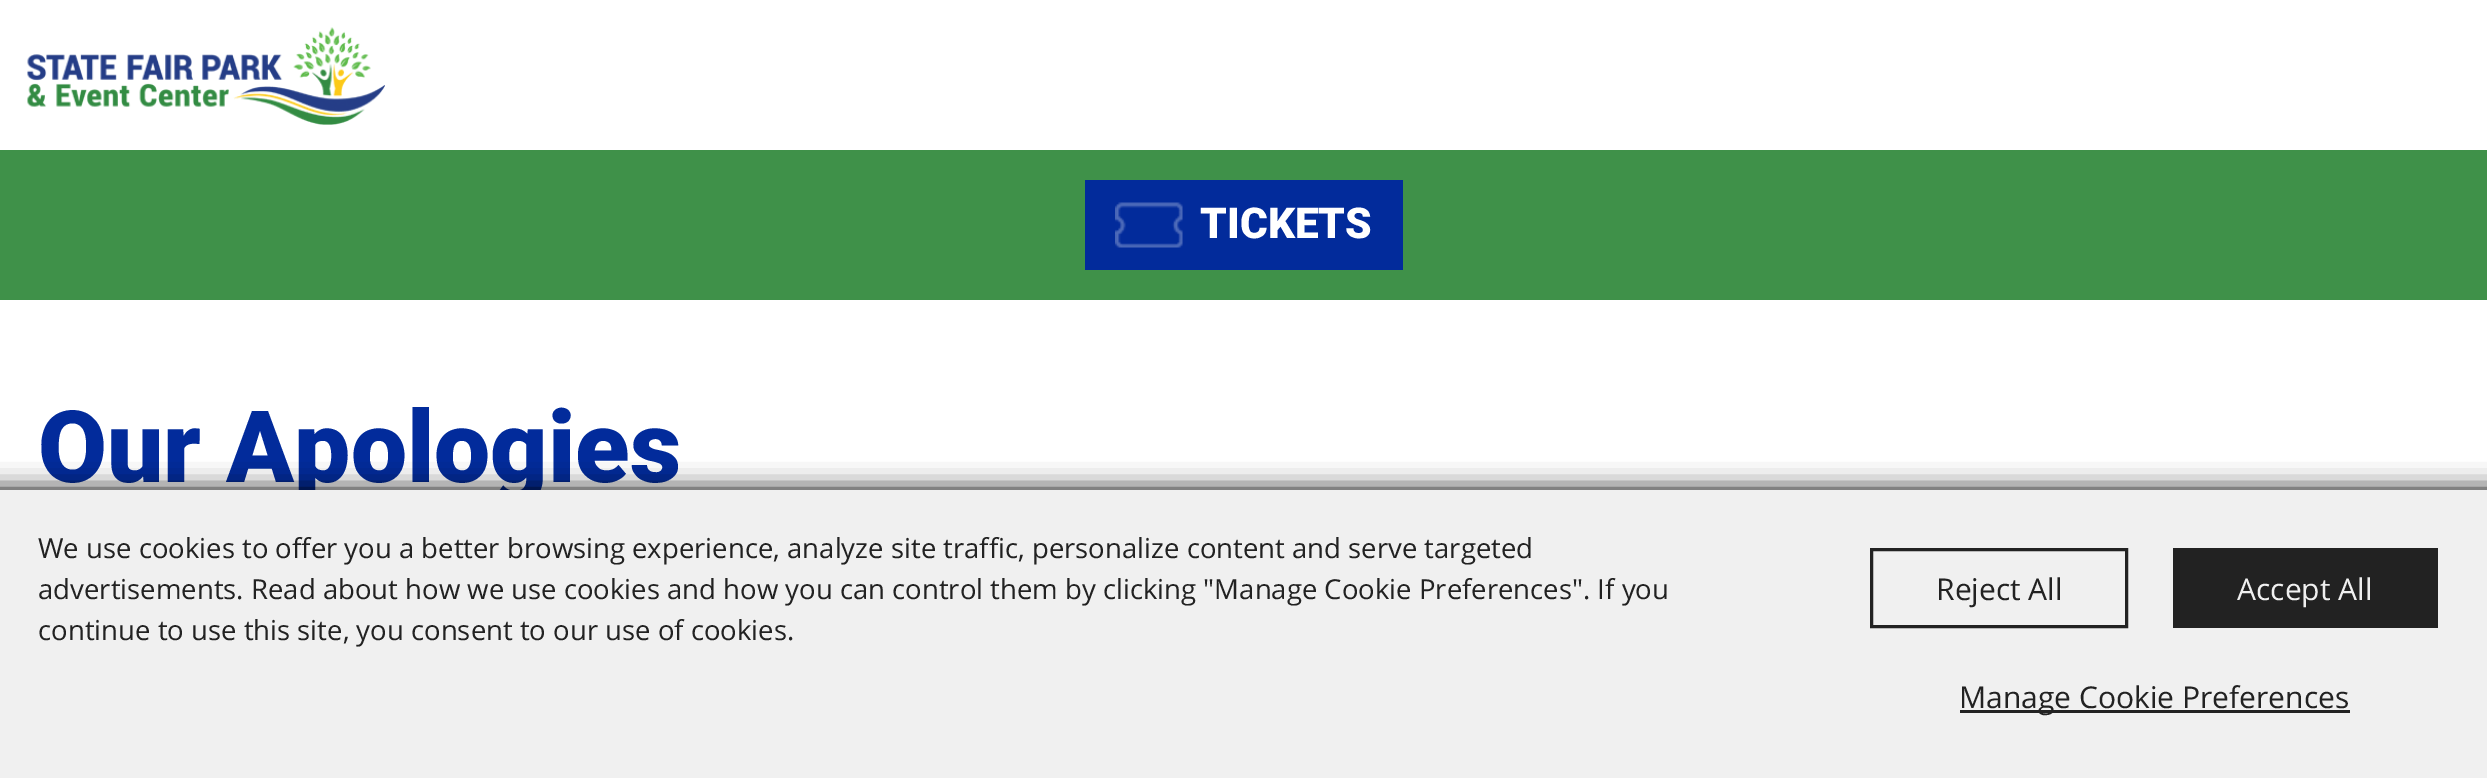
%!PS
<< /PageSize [2487 778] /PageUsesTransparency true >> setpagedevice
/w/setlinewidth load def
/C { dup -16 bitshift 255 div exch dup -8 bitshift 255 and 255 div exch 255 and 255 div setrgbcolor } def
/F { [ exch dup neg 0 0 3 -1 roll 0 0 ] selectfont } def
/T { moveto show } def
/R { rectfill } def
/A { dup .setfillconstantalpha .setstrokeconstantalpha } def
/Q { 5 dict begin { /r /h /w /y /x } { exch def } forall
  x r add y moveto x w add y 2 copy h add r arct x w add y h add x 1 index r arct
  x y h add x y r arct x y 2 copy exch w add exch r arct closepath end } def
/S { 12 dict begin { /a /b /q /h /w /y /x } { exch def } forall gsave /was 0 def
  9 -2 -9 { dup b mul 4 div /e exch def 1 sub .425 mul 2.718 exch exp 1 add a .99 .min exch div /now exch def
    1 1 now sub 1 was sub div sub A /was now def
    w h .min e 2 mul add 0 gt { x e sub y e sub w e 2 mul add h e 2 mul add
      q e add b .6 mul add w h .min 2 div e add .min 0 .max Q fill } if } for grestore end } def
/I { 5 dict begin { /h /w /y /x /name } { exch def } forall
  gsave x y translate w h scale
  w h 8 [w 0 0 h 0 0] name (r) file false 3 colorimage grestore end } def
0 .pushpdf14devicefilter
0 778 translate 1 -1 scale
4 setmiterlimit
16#FFFFFF C
0 0 2487 778 R
(1.rgb) 27 27 358 98 I
16#3F9149 C
0 150 2487 150 R
16#022B9B C
1085 180 318 90 R
(2.rgb) 1115 202 68 46 I
/Roboto-Black 42.5 F
16#FFFFFF C
(TICKETS) 1200 238 T
/Roboto-Black 100 F
16#022B9B C
(Our Apologies) 38 482 T
16#000000 C
-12 490 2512 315 0 12.5 1 S
16#F0F0F0 C
0 490 2487 288 R
/OpenSans-Regular 27.5 F
16#222222 C
(We use cookies to offer you a better browsing experience, analyze site traffic, personalize content and serve targeted) 38 558 T
(advertisements. Read about how we use cookies and how you can control them by clicking "Manage Cookie Preferences". If you) 38 599 T
(continue to use this site, you consent to our use of cookies.) 38 640 T
3 w
1871.5 549.5 255 77 rectstroke
/OpenSans-Regular 30 F
(Reject All) 1936 600 T
2173 548 265 80 R
16#F0F0F0 C
(Accept All) 2237 600 T
16#222222 C
1960 710 390 3 R
(Manage Cookie Preferences) 1959 708 T
.poppdf14devicefilter showpage
